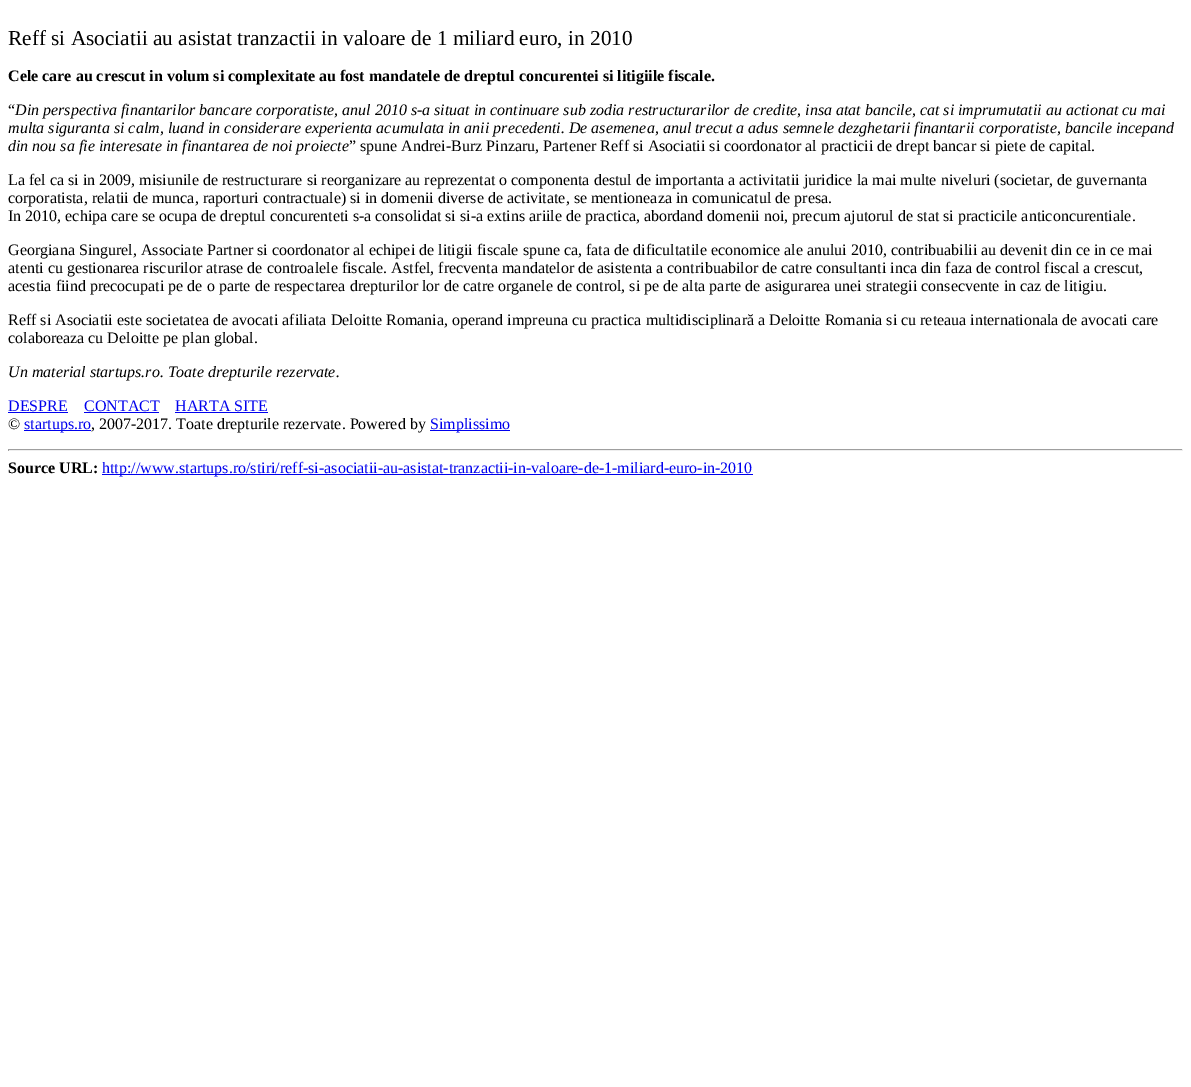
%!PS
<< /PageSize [1191 1087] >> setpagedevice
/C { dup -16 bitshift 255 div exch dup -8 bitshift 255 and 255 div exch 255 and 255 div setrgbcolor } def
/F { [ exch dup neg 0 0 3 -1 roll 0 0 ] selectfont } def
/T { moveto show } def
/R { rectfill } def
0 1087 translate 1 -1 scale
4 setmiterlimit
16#FFFFFF C
0 0 1191 1087 R
/LiberationSerif-Regular 21.3 F
16#000000 C
(Reff si Asociatii au asistat tranzactii in valoare de 1 miliard euro, in 2010) 8 45 T
/LiberationSerif-Bold 16 F
(Cele care au crescut in volum si complexitate au fost mandatele de dreptul concurentei si litigiile fiscale.) 8 81 T
/LiberationSerif-Regular 16 F
(“) 8 115 T
/LiberationSerif-Italic 16 F
(Din perspectiva finantarilor bancare corporatiste, anul 2010 s-a situat in continuare sub zodia restructurarilor de credite, insa atat bancile, cat si imprumutatii au actionat cu mai) 15 115 T
(multa siguranta si calm, luand in considerare experienta acumulata in anii precedenti. De asemenea, anul trecut a adus semnele dezghetarii finantarii corporatiste, bancile incepand) 8 133 T
(din nou sa fie interesate in finantarea de noi proiecte) 8 151 T
/LiberationSerif-Regular 16 F
(” spune Andrei-Burz Pinzaru, Partener Reff si Asociatii si coordonator al practicii de drept bancar si piete de capital.) 349 151 T
(La fel ca si in 2009, misiunile de restructurare si reorganizare au reprezentat o componenta destul de importanta a activitatii juridice la mai multe niveluri \(societar, de guvernanta) 8 185 T
(corporatista, relatii de munca, raporturi contractuale\) si in domenii diverse de activitate, se mentioneaza in comunicatul de presa.) 8 203 T
(In 2010, echipa care se ocupa de dreptul concurenteti s-a consolidat si si-a extins ariile de practica, abordand domenii noi, precum ajutorul de stat si practicile anticoncurentiale.) 8 221 T
(Georgiana Singurel, Associate Partner si coordonator al echipei de litigii fiscale spune ca, fata de dificultatile economice ale anului 2010, contribuabilii au devenit din ce in ce mai) 8 255 T
(atenti cu gestionarea riscurilor atrase de controalele fiscale. Astfel, frecventa mandatelor de asistenta a contribuabilor de catre consultanti inca din faza de control fiscal a crescut,) 8 273 T
(acestia fiind precocupati pe de o parte de respectarea drepturilor lor de catre organele de control, si pe de alta parte de asigurarea unei strategii consecvente in caz de litigiu.) 8 291 T
(Reff si Asociatii este societatea de avocati afiliata Deloitte Romania, operand impreuna cu practica multidisciplinară a Deloitte Romania si cu reteaua internationala de avocati care) 8 325 T
(colaboreaza cu Deloitte pe plan global.) 8 343 T
/LiberationSerif-Italic 16 F
(Un material startups.ro. Toate drepturile rezervate.) 8 377 T
/LiberationSerif-Regular 16 F
16#0000EE C
(DESPRE) 8 411 T
8 412 60 1 R
(CONTACT) 84 411 T
84 412 75 1 R
(HARTA SITE) 175 411 T
175 412 93 1 R
16#000000 C
(©) 8 429 T
16#0000EE C
24 430 67 1 R
(startups.ro) 24 429 T
16#000000 C
(, 2007-2017. Toate drepturile rezervate. Powered by) 91 429 T
16#0000EE C
430 430 80 1 R
(Simplissimo) 430 429 T
16#9F9F9F C
8 449 1175 1 R
16#EEEEEE C
1182 449 1 2 R
8 450 1175 1 R
16#9F9F9F C
8 449 1 2 R
/LiberationSerif-Bold 16 F
16#000000 C
(Source URL:) 8 473 T
16#0000EE C
102 474 651 1 R
/LiberationSerif-Regular 16 F
(http://www.startups.ro/stiri/reff-si-asociatii-au-asistat-tranzactii-in-valoare-de-1-miliard-euro-in-2010) 102 473 T
showpage
